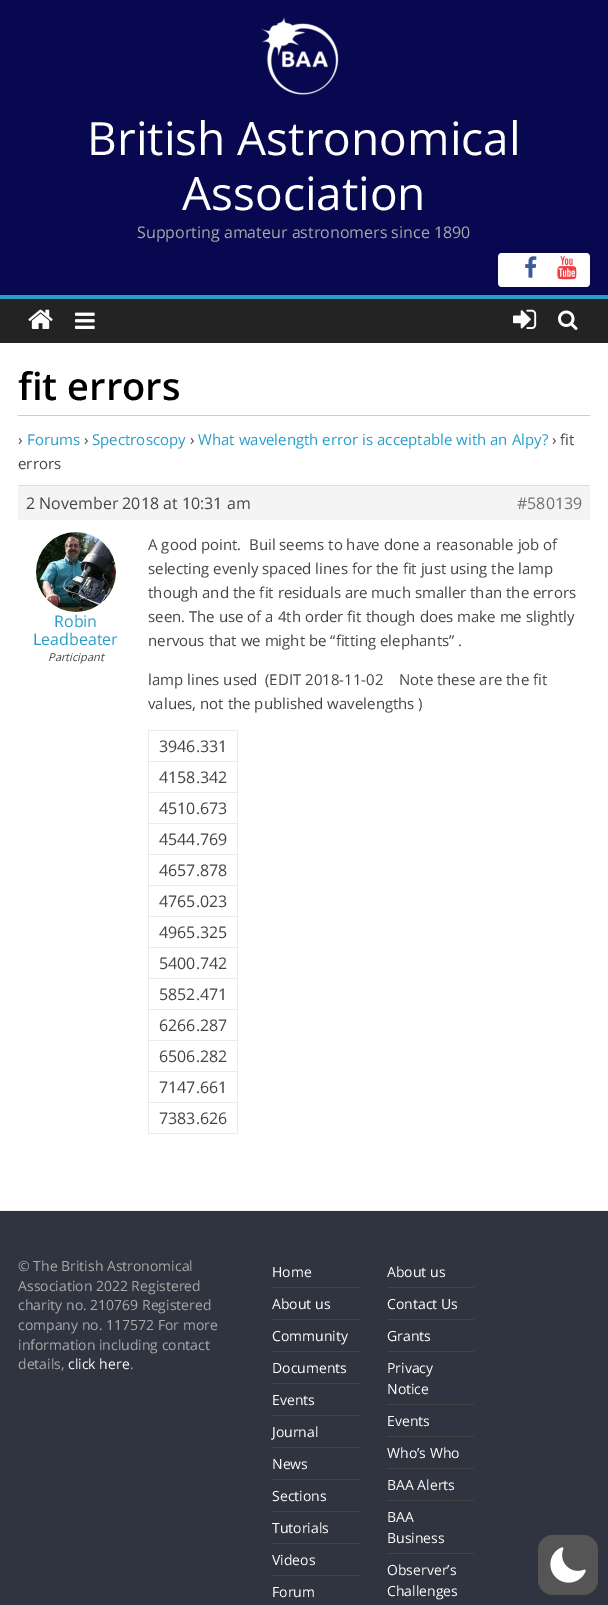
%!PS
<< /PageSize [608 1605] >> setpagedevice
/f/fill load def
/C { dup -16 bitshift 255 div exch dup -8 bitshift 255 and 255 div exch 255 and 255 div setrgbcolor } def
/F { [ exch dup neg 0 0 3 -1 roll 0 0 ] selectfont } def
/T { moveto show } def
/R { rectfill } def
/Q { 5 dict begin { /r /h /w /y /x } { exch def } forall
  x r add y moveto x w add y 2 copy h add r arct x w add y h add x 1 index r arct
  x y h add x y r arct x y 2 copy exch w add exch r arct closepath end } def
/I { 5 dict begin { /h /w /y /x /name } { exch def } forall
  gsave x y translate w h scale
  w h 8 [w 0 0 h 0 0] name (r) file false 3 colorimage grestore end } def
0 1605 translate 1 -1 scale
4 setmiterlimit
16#080850 C
0 0 608 1605 R
(1.rgb) 261 17 78 78 I
/OpenSans-Regular 46 F
16#FFFFFF C
(British Astronomical) 87 155 T
(Association) 182 210 T
/OpenSans-Regular 16 F
16#AAAAAA C
(Supporting amateur astronomers since 1890) 137 238 T
16#FFFFFF C
498 253 92 34 4 Q f
(2.rgb) 525 256 12 22 I
(3.rgb) 557 256 20 24 I
16#232323 C
0 299 608 44 R
16#289DCC C
0 295 608 4 R
(4.rgb) 28 309 25 20 I
(5.rgb) 75 312 20 17 I
(6.rgb) 513 309 24 20 I
(7.rgb) 558 310 20 20 I
16#FFFFFF C
0 343 608 867 R
16#CCCCCC C
18 415 572 1 R
/OpenSans-SemiBold 38 F
16#000000 C
(fit errors) 18 400 T
/OpenSans-Regular 15 F
16#444444 C
(›) 18 445 T
16#289DCC C
(Forums) 27 445 T
16#444444 C
(›) 84 445 T
16#289DCC C
(Spectroscopy) 92 445 T
16#444444 C
(›) 190 445 T
16#289DCC C
(What wavelength error is acceptable with an Alpy?) 198 445 T
16#444444 C
(› fit) 552 445 T
(errors) 18 469 T
16#F4F4F4 C
18 486 572 34 R
16#DDDDDD C
18 485 572 1 R
/OpenSans-Regular 16 F
16#444444 C
(2 November 2018 at 10:31 am) 26 509 T
16#707070 C
(#580139) 517 509 T
(8.rgb) 36 532 80 80 I
16#289DCC C
(Robin) 54 627 T
(Leadbeater) 33 645 T
/OpenSans-Italic 11 F
16#444444 C
(Participant) 48 661 T
/OpenSans-Regular 15 F
(A good point.  Buil seems to have done a reasonable job of) 148 550 T
(selecting evenly spaced lines for the fit just using the lamp) 148 574 T
(though and the fit residuals are much smaller than the errors) 148 598 T
(seen. The use of a 4th order fit though does make me slightly) 148 622 T
(nervous that we might be “fitting elephants” .) 148 646 T
(lamp lines used  \(EDIT 2018-11-02    Note these are the fit) 148 685 T
(values, not the published wavelengths \)) 148 709 T
16#EAEAEA C
148 730 90 1 R
148 761 90 1 R
148 792 90 1 R
148 823 90 1 R
148 854 90 1 R
148 885 90 1 R
148 916 90 1 R
148 947 90 1 R
148 978 90 1 R
148 1009 90 1 R
148 1040 90 1 R
148 1071 90 1 R
148 1102 90 1 R
237 1102 1 32 R
237 1071 1 32 R
237 1040 1 32 R
237 1009 1 32 R
237 978 1 32 R
237 947 1 32 R
237 916 1 32 R
237 885 1 32 R
237 854 1 32 R
237 823 1 32 R
237 792 1 32 R
237 761 1 32 R
237 730 1 32 R
148 1133 90 1 R
148 1102 1 32 R
148 1071 1 32 R
148 1040 1 32 R
148 1009 1 32 R
148 978 1 32 R
148 947 1 32 R
148 916 1 32 R
148 885 1 32 R
148 854 1 32 R
148 823 1 32 R
148 792 1 32 R
148 761 1 32 R
148 730 1 32 R
/OpenSans-Regular 16 F
16#444444 C
(3946.331) 159 752 T
(4158.342) 159 783 T
(4510.673) 159 814 T
(4544.769) 159 845 T
(4657.878) 159 876 T
(4765.023) 159 907 T
(4965.325) 159 938 T
(5400.742) 159 969 T
(5852.471) 159 1000 T
(6266.287) 159 1031 T
(6506.282) 159 1062 T
(7147.661) 159 1093 T
(7383.626) 159 1124 T
16#303440 C
0 1211 608 394 R
16#F2F2F2 C
0 1210 608 1 R
/OpenSans-Regular 14 F
16#AAAAAA C
(© The British Astronomical) 18 1271 T
(Association 2022 Registered) 18 1291 T
(charity no. 210769 Registered) 18 1310 T
(company no. 117572 For more) 18 1330 T
(information including contact) 18 1350 T
(details,) 18 1369 T
16#FFFFFF C
(click here) 68 1369 T
16#AAAAAA C
(.) 130 1369 T
16#444444 C
272 1287 87 1 R
16#FFFFFF C
(Home) 272 1277 T
16#444444 C
272 1319 87 1 R
16#FFFFFF C
(About us) 272 1309 T
16#444444 C
272 1351 87 1 R
16#FFFFFF C
(Community) 272 1341 T
16#444444 C
272 1383 87 1 R
16#FFFFFF C
(Documents) 272 1373 T
16#444444 C
272 1415 87 1 R
16#FFFFFF C
(Events) 272 1405 T
16#444444 C
272 1447 87 1 R
16#FFFFFF C
(Journal) 272 1437 T
16#444444 C
272 1479 87 1 R
16#FFFFFF C
(News) 272 1469 T
16#444444 C
272 1511 87 1 R
16#FFFFFF C
(Sections) 272 1501 T
16#444444 C
272 1543 87 1 R
16#FFFFFF C
(Tutorials) 272 1533 T
16#444444 C
272 1575 87 1 R
16#FFFFFF C
(Videos) 272 1565 T
(Forum) 272 1597 T
16#444444 C
387 1287 87 1 R
16#FFFFFF C
(About us) 387 1277 T
16#444444 C
387 1319 87 1 R
16#FFFFFF C
(Contact Us) 387 1309 T
16#444444 C
387 1351 87 1 R
16#FFFFFF C
(Grants) 387 1341 T
16#444444 C
387 1404 87 1 R
16#FFFFFF C
(Privacy) 387 1373 T
(Notice) 387 1394 T
16#444444 C
387 1436 87 1 R
16#FFFFFF C
(Events) 387 1426 T
16#444444 C
387 1468 87 1 R
16#FFFFFF C
(Who’s Who) 387 1458 T
16#444444 C
387 1500 87 1 R
16#FFFFFF C
(BAA Alerts) 387 1490 T
16#444444 C
387 1553 87 1 R
16#FFFFFF C
(BAA) 387 1522 T
(Business) 387 1543 T
(Observer’s) 387 1575 T
(Challenges) 387 1596 T
16#555555 C
538 1535 60 60 15 Q f
(9.rgb) 550 1547 36 36 I
showpage
